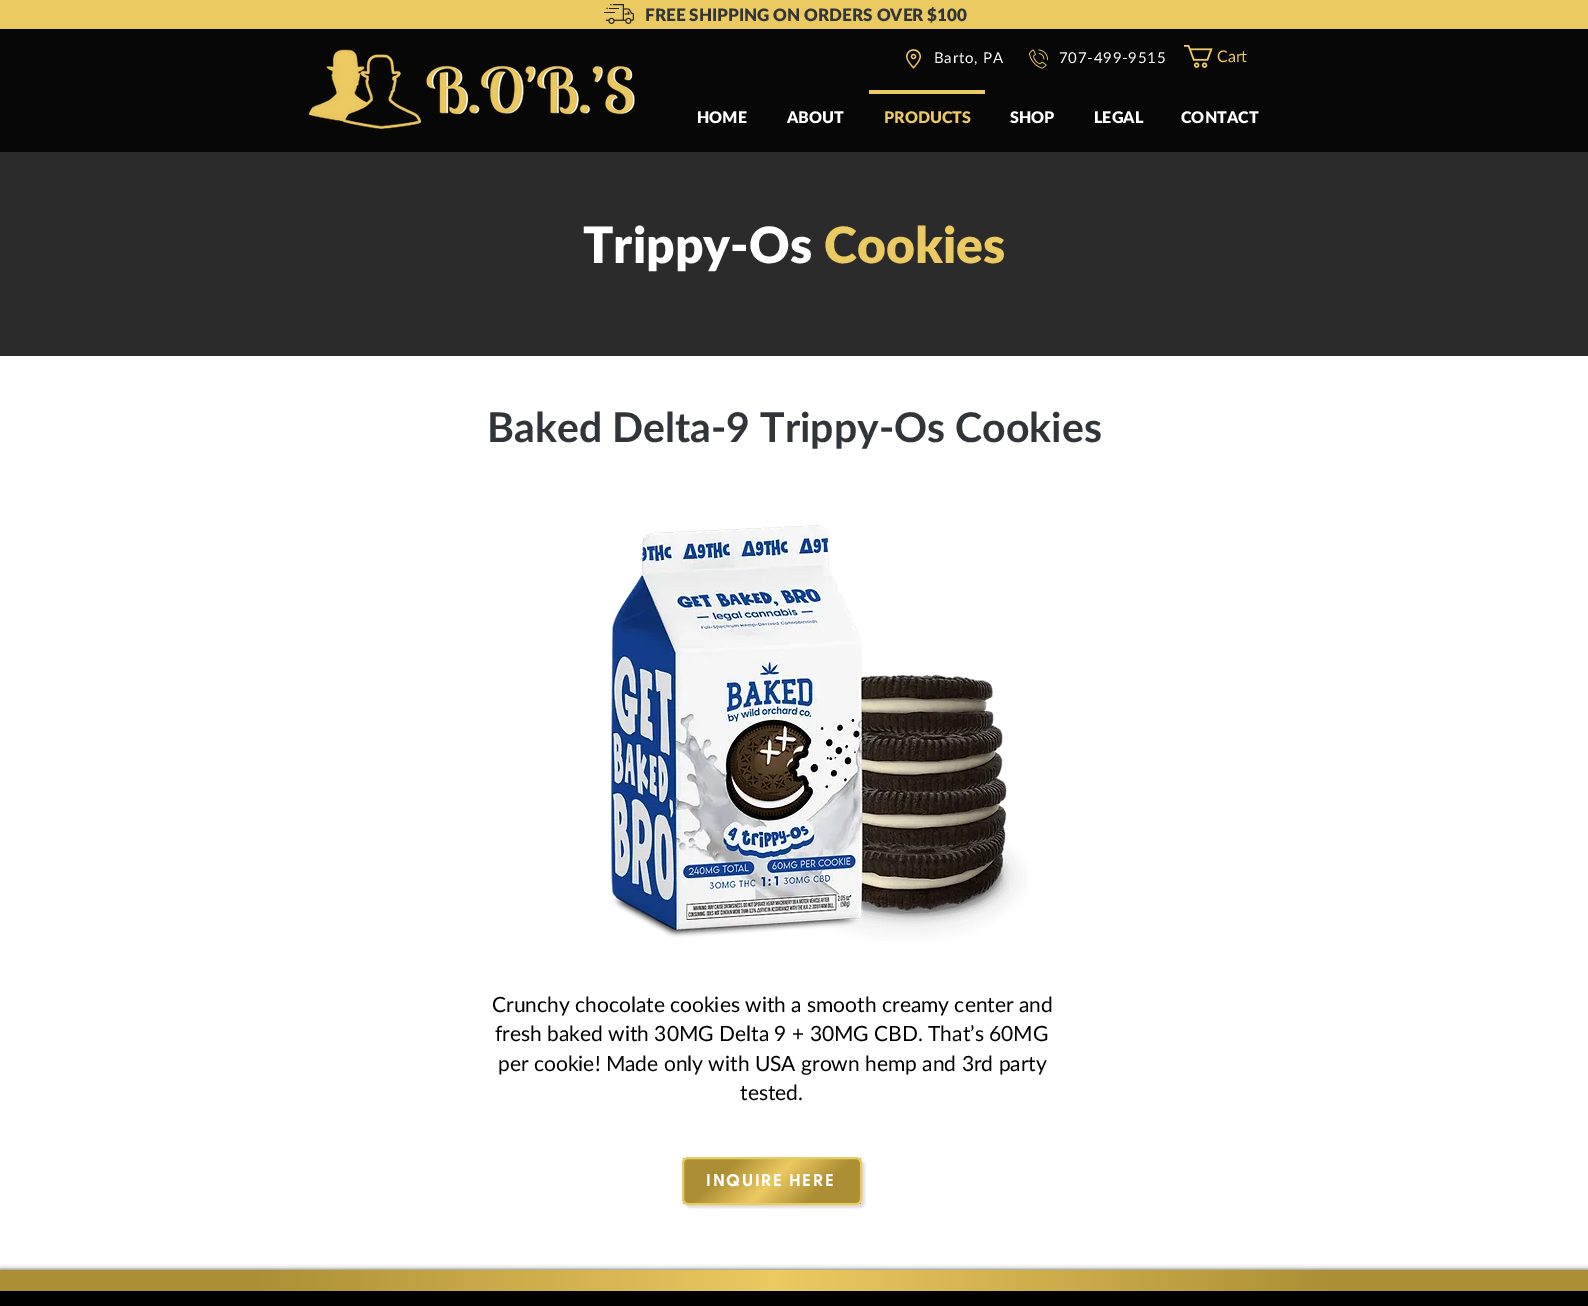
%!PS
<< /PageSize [1588 1306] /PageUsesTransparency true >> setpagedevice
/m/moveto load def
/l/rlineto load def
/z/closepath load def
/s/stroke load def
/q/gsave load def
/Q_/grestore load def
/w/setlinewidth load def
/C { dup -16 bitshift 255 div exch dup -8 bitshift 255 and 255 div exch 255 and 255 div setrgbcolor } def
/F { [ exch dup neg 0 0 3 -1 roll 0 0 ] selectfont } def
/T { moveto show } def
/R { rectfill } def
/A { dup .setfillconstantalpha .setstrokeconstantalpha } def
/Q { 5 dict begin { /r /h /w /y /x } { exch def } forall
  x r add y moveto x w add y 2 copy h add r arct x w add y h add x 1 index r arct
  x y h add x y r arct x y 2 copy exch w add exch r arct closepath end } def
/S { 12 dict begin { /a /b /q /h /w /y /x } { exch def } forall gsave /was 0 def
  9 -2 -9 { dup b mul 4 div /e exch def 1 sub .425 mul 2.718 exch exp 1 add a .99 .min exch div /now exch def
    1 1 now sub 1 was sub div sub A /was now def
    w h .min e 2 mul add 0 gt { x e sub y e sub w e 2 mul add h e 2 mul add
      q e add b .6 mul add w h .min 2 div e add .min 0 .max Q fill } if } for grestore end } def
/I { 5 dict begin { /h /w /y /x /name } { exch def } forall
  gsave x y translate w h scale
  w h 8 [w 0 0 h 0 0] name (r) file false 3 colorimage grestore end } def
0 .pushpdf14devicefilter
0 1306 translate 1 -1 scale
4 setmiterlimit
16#2B2B2B C
0 0 1588 1306 R
16#ECCA62 C
0 0 1588 29 R
(1.rgb) 604 4 30 20 I
/Lato-Black 17 F
16#313539 C
(FREE SHIPPING ON ORDERS OVER $100) 645 21 T
16#070707 C
0 29 1588 123 R
(2.rgb) 308 49 327 80 I
(3.rgb) 906 49 15 20 I
/Lato-Regular 15 F
16#FFFFFF C
934 63 m .75 0 (Barto, PA) ashow
(4.rgb) 1029 49 19 20 I
1059 63 m .75 0 (707-499-9515) ashow
(5.rgb) 1184 45 29 23 I
/Lato-Regular 16 F
16#ECCA62 C
(Cart) 1217 62 T
/Lato-Black 16 F
16#FFFFFF C
(HOME) 697 123 T
(ABOUT) 787 123 T
16#ECCA62 C
869 90 116 4 R
(PRODUCTS) 884 123 T
16#FFFFFF C
(SHOP) 1010 123 T
(LEGAL) 1094 123 T
(CONTACT) 1181 123 T
/Lato-Black 50 F
(Trippy-Os) 583 263 T
16#ECCA62 C
(Cookies) 824 263 T
16#FFFFFF C
0 356 1588 914 R
/Lato-Bold 41 F
16#313539 C
(Baked Delta-9 Trippy-Os Cookies) 487 442 T
(6.rgb) 611 525 417 416 I
/Lato-Regular 21 F
16#000000 C
(Crunchy chocolate cookies with a smooth creamy center and) 492 1012 T
(fresh baked with 30MG Delta 9 + 30MG CBD. That’s 60MG) 495 1041 T
(per cookie! Made only with USA grown hemp and 3rd party) 498 1071 T
(tested.) 740 1100 T
685 1160 180 48 6 1 .12 S
q
682 1157 180 48 6 Q clip newpath
q 682 1158 m 2 0 l 0 1 l -2 0 l z clip newpath
<< /ShadingType 2 /ColorSpace /DeviceRGB /Coords [543 1082 649 1192] /Extend [true true] /Function << /FunctionType 3 /Domain [0 1] /Functions [<< /FunctionType 2 /Domain [0 1] /C0 [.675 .561 .204] /C1 [.675 .561 .204] /N 1 >> << /FunctionType 2 /Domain [0 1] /C0 [.675 .561 .204] /C1 [.925 .792 .384] /N 1 >> << /FunctionType 2 /Domain [0 1] /C0 [.925 .792 .384] /C1 [.675 .561 .204] /N 1 >> << /FunctionType 2 /Domain [0 1] /C0 [.675 .561 .204] /C1 [.675 .561 .204] /N 1 >>] /Bounds [.24 .5 .76] /Encode [0 1 0 1 0 1 0 1] >> >> shfill Q_
q 860 1158 m 2 0 l 0 1 l -2 0 l z clip newpath
<< /ShadingType 2 /ColorSpace /DeviceRGB /Coords [895 1082 1001 1192] /Extend [true true] /Function << /FunctionType 3 /Domain [0 1] /Functions [<< /FunctionType 2 /Domain [0 1] /C0 [.675 .561 .204] /C1 [.675 .561 .204] /N 1 >> << /FunctionType 2 /Domain [0 1] /C0 [.675 .561 .204] /C1 [.925 .792 .384] /N 1 >> << /FunctionType 2 /Domain [0 1] /C0 [.925 .792 .384] /C1 [.675 .561 .204] /N 1 >> << /FunctionType 2 /Domain [0 1] /C0 [.675 .561 .204] /C1 [.675 .561 .204] /N 1 >>] /Bounds [.24 .5 .76] /Encode [0 1 0 1 0 1 0 1] >> >> shfill Q_
Q_
q 684 1159 m 176 0 l 0 44 l -176 0 l z clip newpath
<< /ShadingType 2 /ColorSpace /DeviceRGB /Coords [719 1126 825 1236] /Extend [true true] /Function << /FunctionType 3 /Domain [0 1] /Functions [<< /FunctionType 2 /Domain [0 1] /C0 [.675 .561 .204] /C1 [.675 .561 .204] /N 1 >> << /FunctionType 2 /Domain [0 1] /C0 [.675 .561 .204] /C1 [.925 .792 .384] /N 1 >> << /FunctionType 2 /Domain [0 1] /C0 [.925 .792 .384] /C1 [.675 .561 .204] /N 1 >> << /FunctionType 2 /Domain [0 1] /C0 [.675 .561 .204] /C1 [.675 .561 .204] /N 1 >>] /Bounds [.24 .5 .76] /Encode [0 1 0 1 0 1 0 1] >> >> shfill Q_
q
682 1157 180 48 6 Q clip newpath
q 682 1203 m 2 0 l 0 1 l -2 0 l z clip newpath
<< /ShadingType 2 /ColorSpace /DeviceRGB /Coords [543 1170 649 1280] /Extend [true true] /Function << /FunctionType 3 /Domain [0 1] /Functions [<< /FunctionType 2 /Domain [0 1] /C0 [.675 .561 .204] /C1 [.675 .561 .204] /N 1 >> << /FunctionType 2 /Domain [0 1] /C0 [.675 .561 .204] /C1 [.925 .792 .384] /N 1 >> << /FunctionType 2 /Domain [0 1] /C0 [.925 .792 .384] /C1 [.675 .561 .204] /N 1 >> << /FunctionType 2 /Domain [0 1] /C0 [.675 .561 .204] /C1 [.675 .561 .204] /N 1 >>] /Bounds [.24 .5 .76] /Encode [0 1 0 1 0 1 0 1] >> >> shfill Q_
q 860 1203 m 2 0 l 0 1 l -2 0 l z clip newpath
<< /ShadingType 2 /ColorSpace /DeviceRGB /Coords [895 1170 1001 1280] /Extend [true true] /Function << /FunctionType 3 /Domain [0 1] /Functions [<< /FunctionType 2 /Domain [0 1] /C0 [.675 .561 .204] /C1 [.675 .561 .204] /N 1 >> << /FunctionType 2 /Domain [0 1] /C0 [.675 .561 .204] /C1 [.925 .792 .384] /N 1 >> << /FunctionType 2 /Domain [0 1] /C0 [.925 .792 .384] /C1 [.675 .561 .204] /N 1 >> << /FunctionType 2 /Domain [0 1] /C0 [.675 .561 .204] /C1 [.675 .561 .204] /N 1 >>] /Bounds [.24 .5 .76] /Encode [0 1 0 1 0 1 0 1] >> >> shfill Q_
Q_
16#ECCA62 C
2 w
683 1158 178 46 5 Q s
/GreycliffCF-Bold 17 F
16#FFFFFF C
706 1186 m 1.75 0 (INQUIRE HERE) ashow
16#000000 C
0 1270 1588 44 0 2.5 .7 S
0 1291 1588 15 R
q 0 1270 m 1588 0 l 0 21 l -1588 0 l z clip newpath
<< /ShadingType 2 /ColorSpace /DeviceRGB /Coords [0 1281 1588 1281] /Extend [true true] /Function << /FunctionType 3 /Domain [0 1] /Functions [<< /FunctionType 2 /Domain [0 1] /C0 [.675 .561 .204] /C1 [.675 .561 .204] /N 1 >> << /FunctionType 2 /Domain [0 1] /C0 [.675 .561 .204] /C1 [.925 .792 .384] /N 1 >> << /FunctionType 2 /Domain [0 1] /C0 [.925 .792 .384] /C1 [.675 .561 .204] /N 1 >> << /FunctionType 2 /Domain [0 1] /C0 [.675 .561 .204] /C1 [.675 .561 .204] /N 1 >>] /Bounds [.16 .49 .84] /Encode [0 1 0 1 0 1 0 1] >> >> shfill Q_
.poppdf14devicefilter showpage
